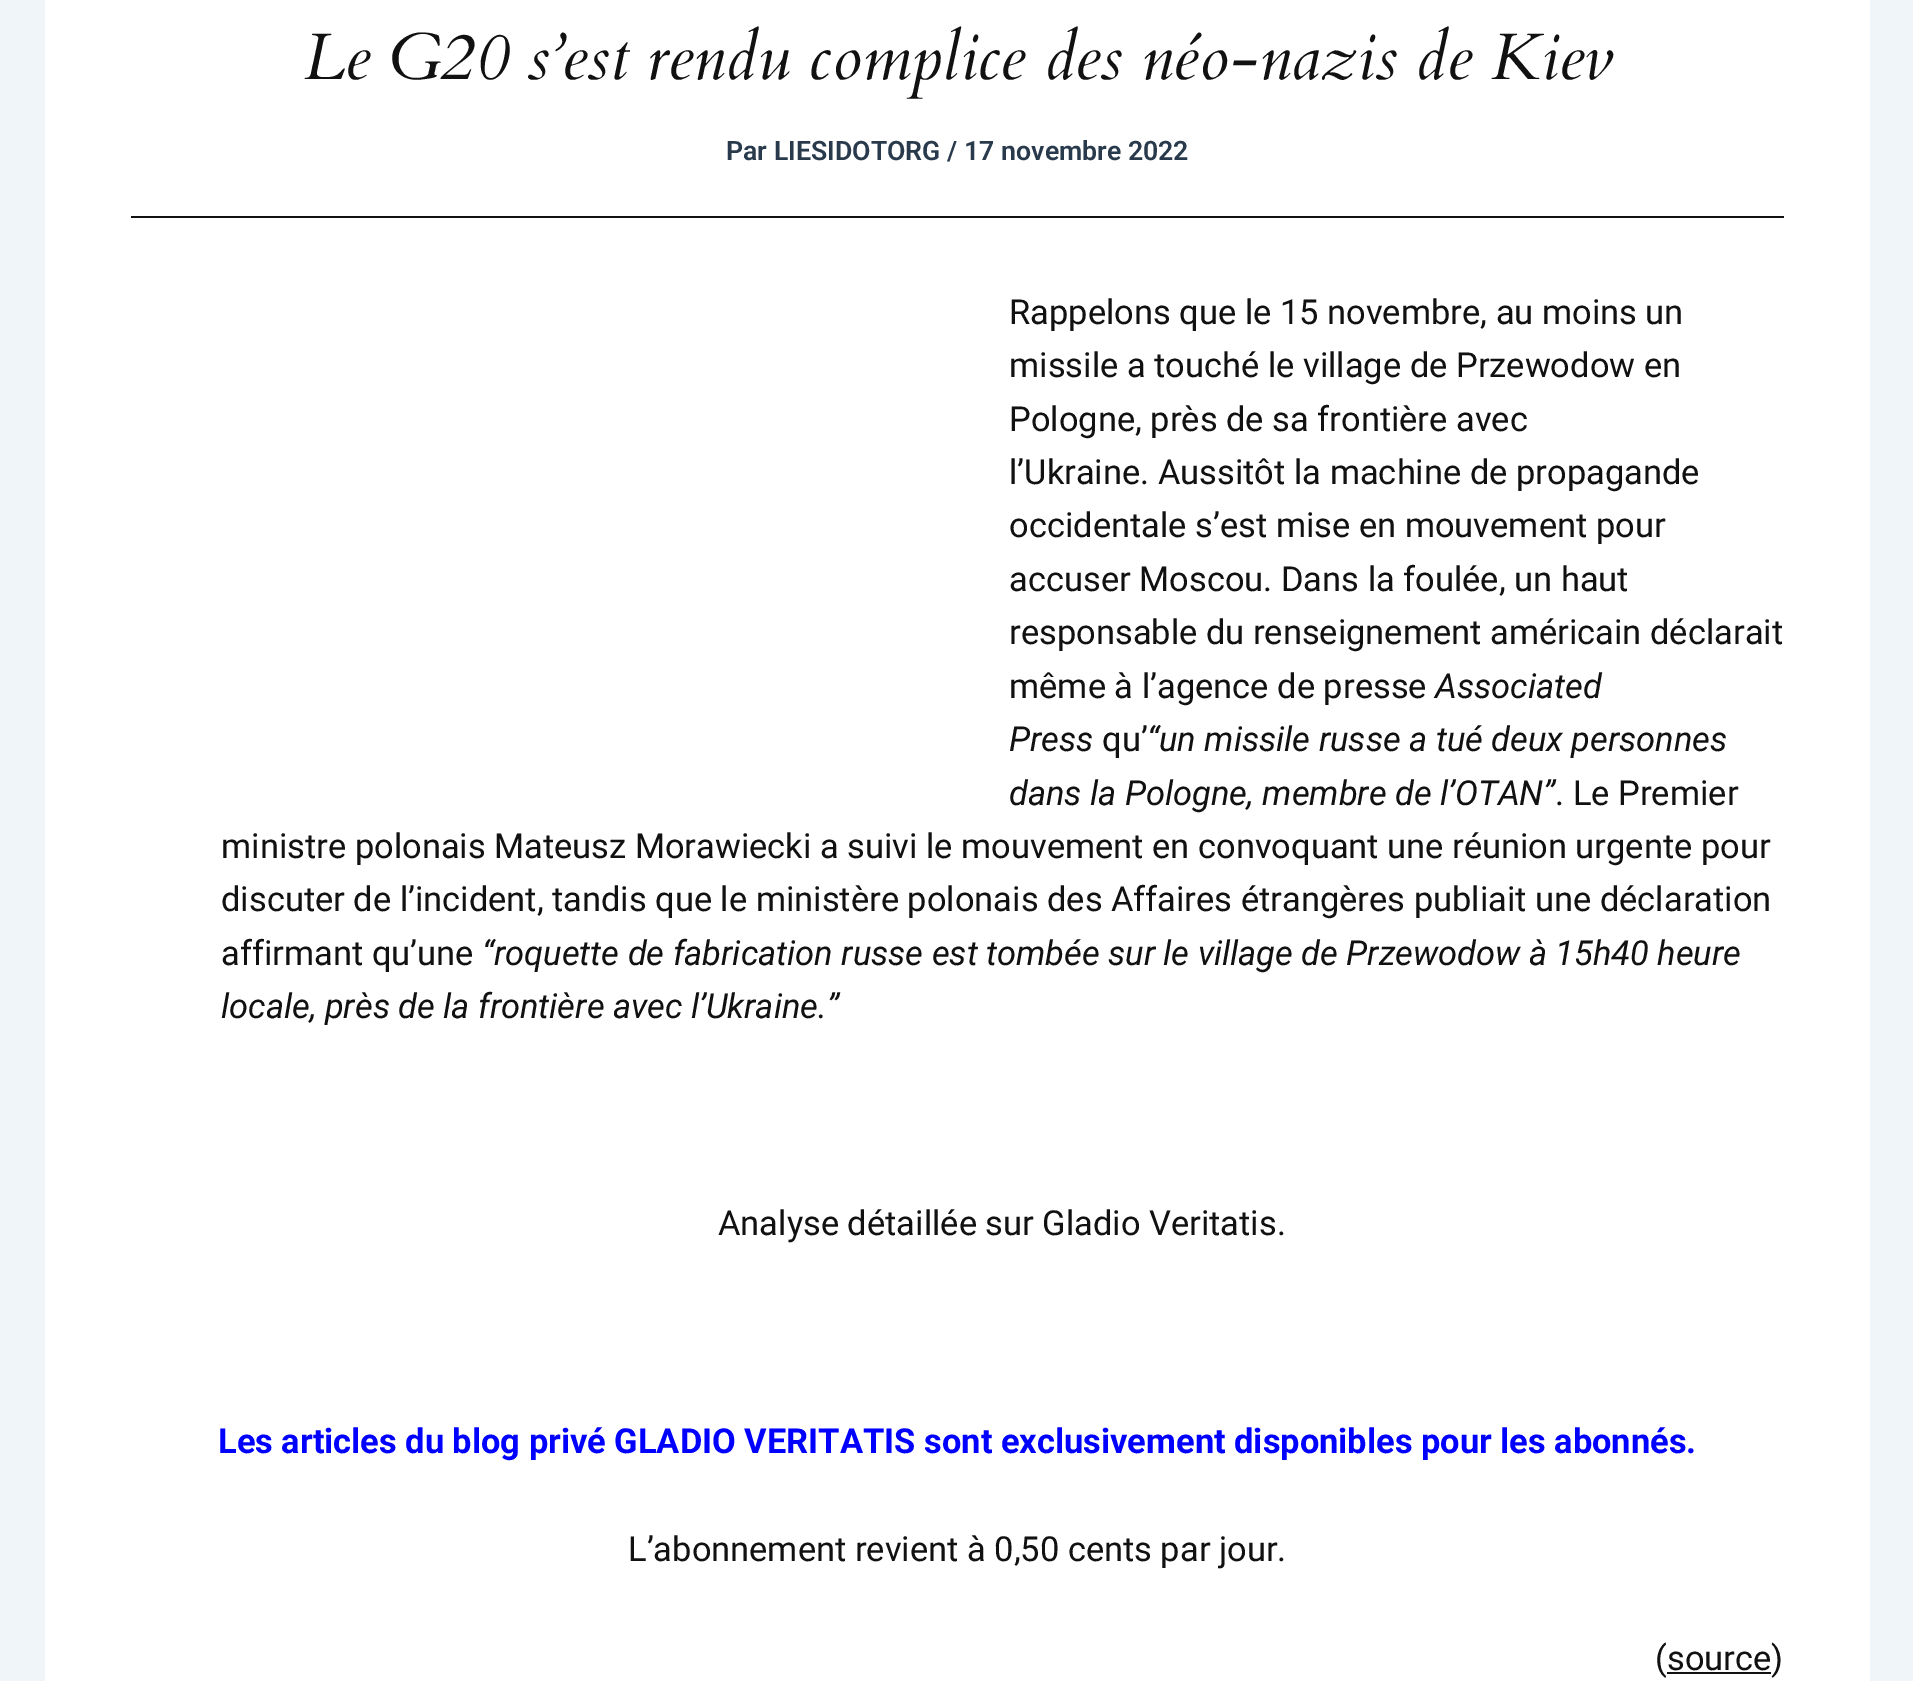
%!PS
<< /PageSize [1913 1681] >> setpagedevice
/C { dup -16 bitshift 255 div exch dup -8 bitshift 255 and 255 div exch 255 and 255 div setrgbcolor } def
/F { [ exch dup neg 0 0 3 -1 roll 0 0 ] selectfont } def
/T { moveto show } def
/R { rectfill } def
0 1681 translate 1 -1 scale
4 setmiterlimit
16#F0F5FA C
0 0 1913 1681 R
16#FFFFFF C
45 0 1825 1681 R
16#111111 C
131 216 1653 2 R
/Cardo-Italic 65.7 F
(Le G20 s’est rendu complice des néo-nazis de Kiev) 304 79 T
/Roboto-SemiBold 26.7 F
16#283A4B C
(Par LIESIDOTORG / 17 novembre 2022) 726 160 T
/Roboto-Regular 34.45 F
16#111111 C
(Rappelons que le 15 novembre, au moins un) 1009 324 T
(missile a touché le village de Przewodow en) 1009 377 T
(Pologne, près de sa frontière avec) 1009 431 T
(l’Ukraine. Aussitôt la machine de propagande) 1009 484 T
(occidentale s’est mise en mouvement pour) 1009 537 T
(accuser Moscou. Dans la foulée, un haut) 1009 591 T
(responsable du renseignement américain déclarait) 1009 644 T
(même à l’agence de presse) 1009 698 T
/Roboto-Italic 34.45 F
(Associated) 1435 698 T
(Press) 1009 751 T
/Roboto-Regular 34.45 F
(qu’) 1102 751 T
/Roboto-Italic 34.45 F
(“un missile russe a tué deux personnes) 1147 751 T
(dans la Pologne, membre de l’OTAN”) 1009 805 T
/Roboto-Regular 34.45 F
(. Le Premier) 1555 805 T
(ministre polonais Mateusz Morawiecki a suivi le mouvement en convoquant une réunion urgente pour) 221 858 T
(discuter de l’incident, tandis que le ministère polonais des Affaires étrangères publiait une déclaration) 221 911 T
(affirmant qu’une) 221 965 T
/Roboto-Italic 34.45 F
(“roquette de fabrication russe est tombée sur le village de Przewodow à 15h40 heure) 482 965 T
(locale, près de la frontière avec l’Ukraine.”) 221 1018 T
/Roboto-Regular 34.45 F
(Analyse détaillée sur Gladio Veritatis.) 718 1235 T
/Roboto-Bold 34.45 F
16#0000FF C
(Les articles du blog privé GLADIO VERITATIS sont exclusivement disponibles pour les abonnés.) 218 1453 T
/Roboto-Regular 34.45 F
16#111111 C
(L’abonnement revient à 0,50 cents par jour.) 628 1561 T
(\(source\)) 1655 1670 T
1667 1672 104 2 R
showpage
